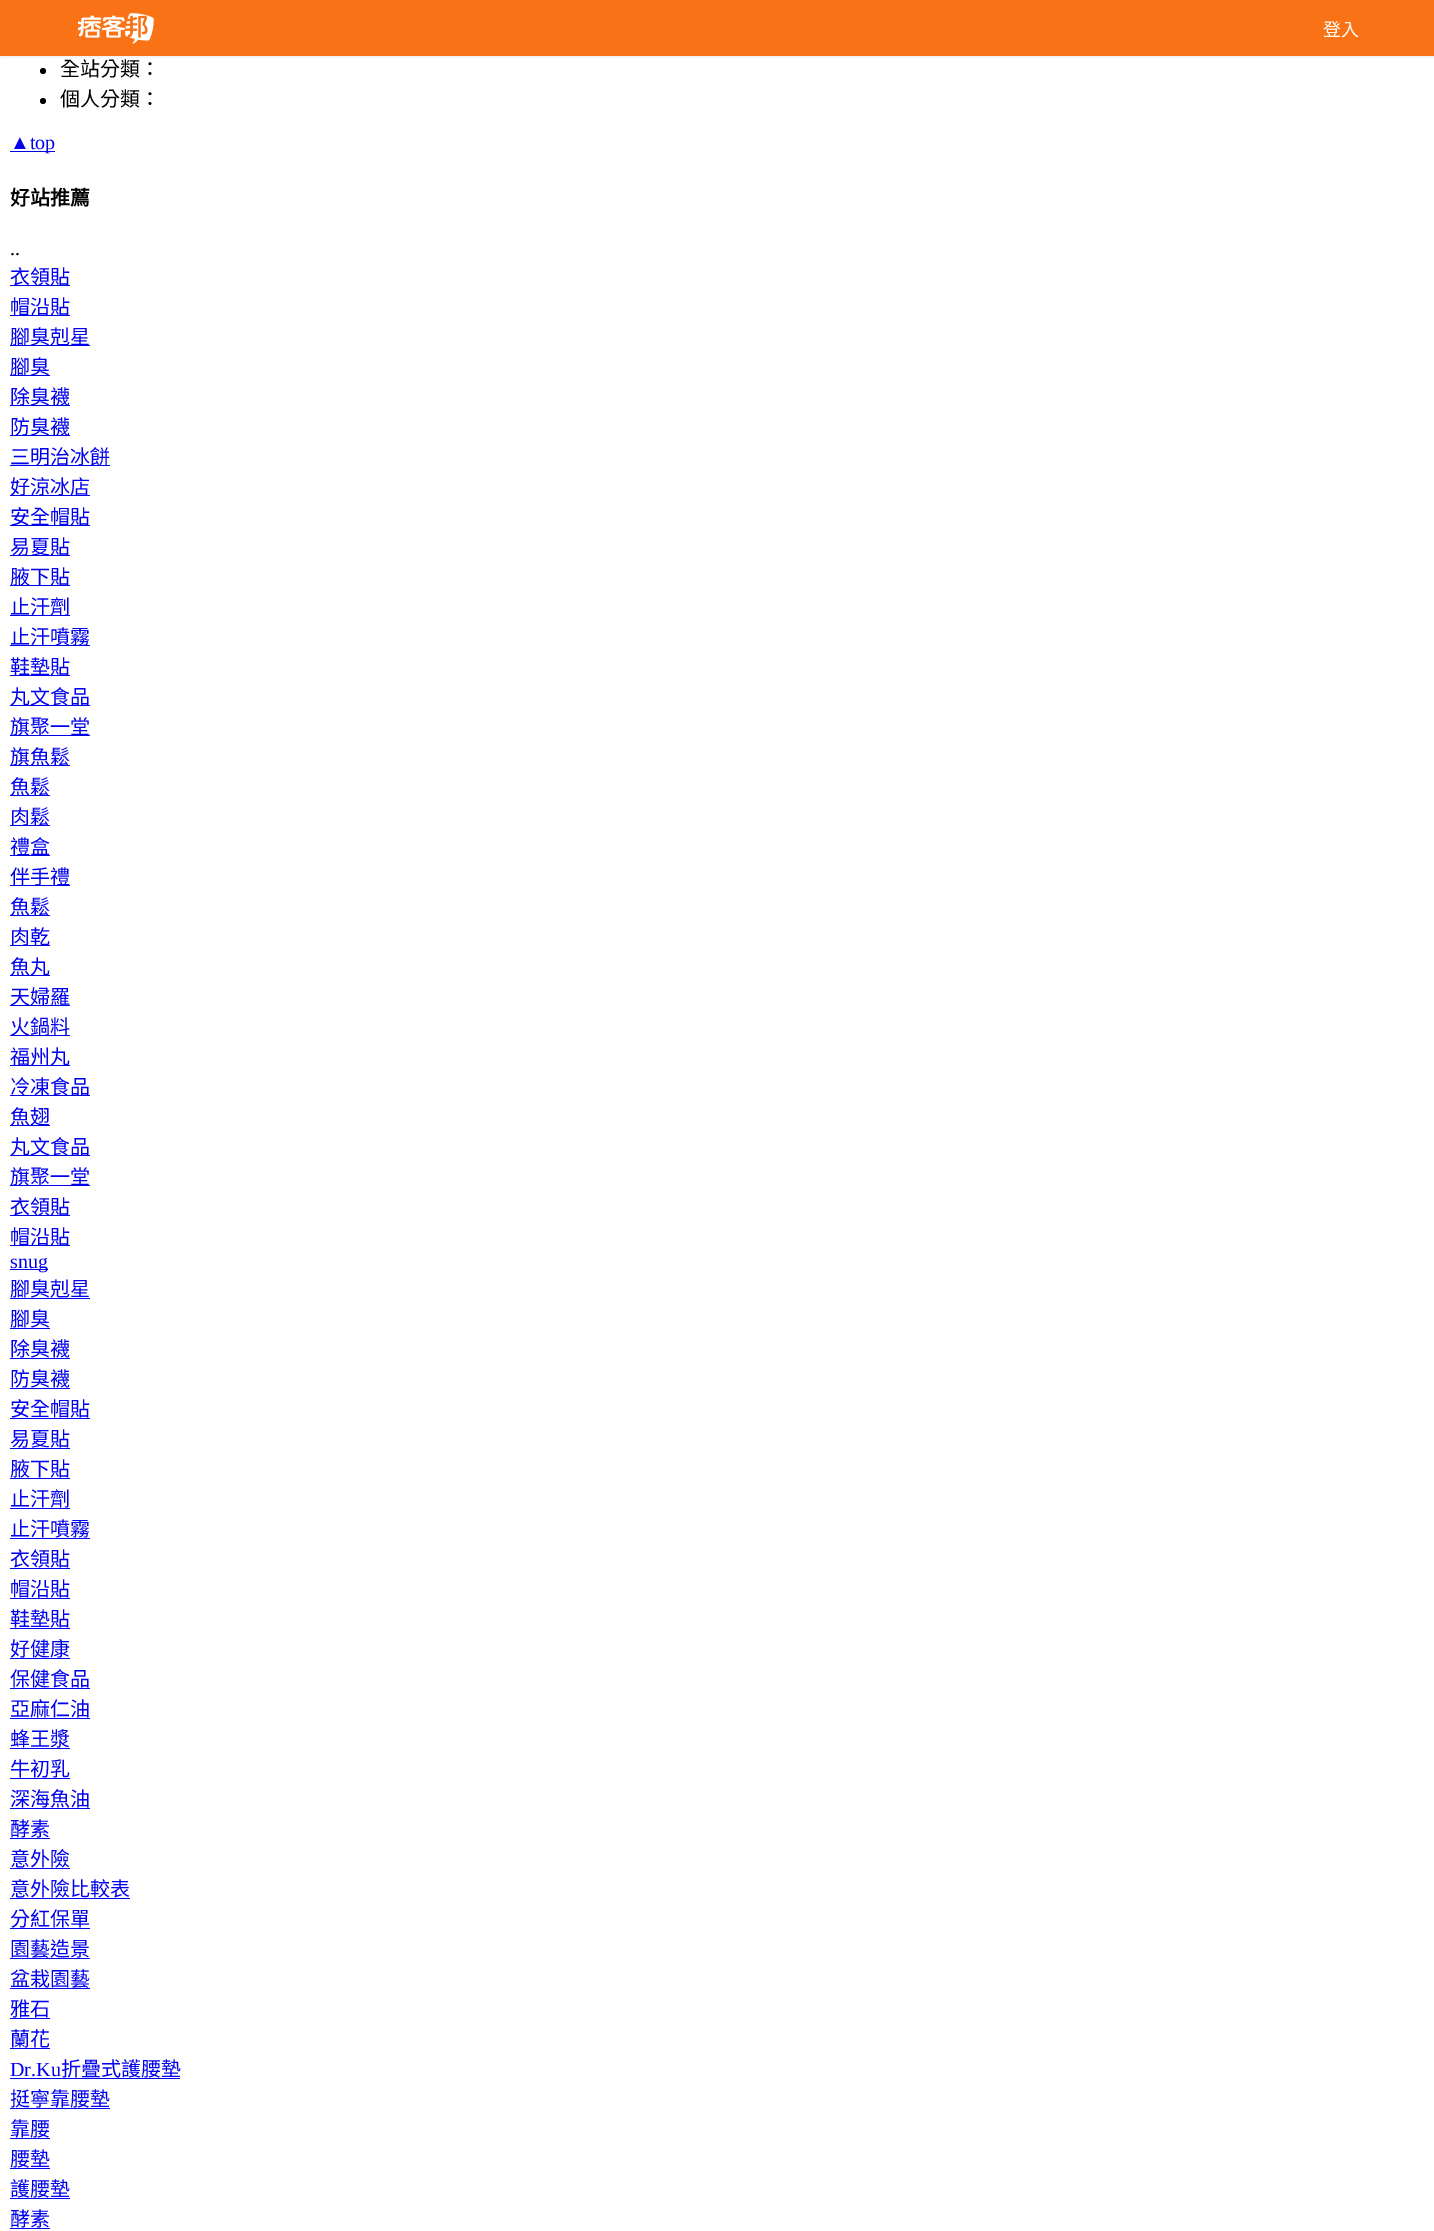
%!PS
<< /PageSize [1434 2231] /PageUsesTransparency true >> setpagedevice
/f/fill load def
/C { dup -16 bitshift 255 div exch dup -8 bitshift 255 and 255 div exch 255 and 255 div setrgbcolor } def
/F { [ exch dup neg 0 0 3 -1 roll 0 0 ] selectfont } def
/T { moveto show } def
/R { rectfill } def
/A { dup .setfillconstantalpha .setstrokeconstantalpha } def
/O { newpath 0 360 arc closepath } def
/Q { 5 dict begin { /r /h /w /y /x } { exch def } forall
  x r add y moveto x w add y 2 copy h add r arct x w add y h add x 1 index r arct
  x y h add x y r arct x y 2 copy exch w add exch r arct closepath end } def
/S { 12 dict begin { /a /b /q /h /w /y /x } { exch def } forall gsave /was 0 def
  9 -2 -9 { dup b mul 4 div /e exch def 1 sub .425 mul 2.718 exch exp 1 add a .99 .min exch div /now exch def
    1 1 now sub 1 was sub div sub A /was now def
    w h .min e 2 mul add 0 gt { x e sub y e sub w e 2 mul add h e 2 mul add
      q e add b .6 mul add w h .min 2 div e add .min 0 .max Q fill } if } for grestore end } def
/I { 5 dict begin { /h /w /y /x /name } { exch def } forall
  gsave x y translate w h scale
  w h 8 [w 0 0 h 0 0] name (r) file false 3 colorimage grestore end } def
0 .pushpdf14devicefilter
0 2231 translate 1 -1 scale
4 setmiterlimit
16#FFFFFF C
0 0 1434 2231 R
16#000000 C
0 1 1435 57 0 1 .05 S
16#F97316 C
0 0 1434 56 R
(1.rgb) 78 13 76 31 I
/NotoSansCJKTC-Regular 18 F
16#FFFFFF C
(登入) 1323 36 T
16#000000 C
43 71 3 O f
/NotoSansCJKTC-Regular 20 F
(全站分類：) 60 76 T
43 101 3 O f
(個人分類：) 60 106 T
16#0000EE C
10 151 45 1 R
/LiberationSerif-Regular 20 F
(▲top) 10 149 T
/NotoSansCJKTC-Bold 20 F
16#000000 C
(好站推薦) 10 205 T
/LiberationSerif-Regular 20 F
(..) 10 255 T
16#0000EE C
10 285 60 1 R
/NotoSansCJKTC-Regular 20 F
(衣領貼) 10 284 T
10 315 60 1 R
(帽沿貼) 10 314 T
10 345 80 1 R
(腳臭剋星) 10 344 T
10 375 40 1 R
(腳臭) 10 374 T
10 405 60 1 R
(除臭襪) 10 404 T
10 435 60 1 R
(防臭襪) 10 434 T
10 465 100 1 R
(三明治冰餅) 10 464 T
10 495 80 1 R
(好涼冰店) 10 494 T
10 525 80 1 R
(安全帽貼) 10 524 T
10 555 60 1 R
(易夏貼) 10 554 T
10 585 60 1 R
(腋下貼) 10 584 T
10 615 60 1 R
(止汗劑) 10 614 T
10 645 80 1 R
(止汗噴霧) 10 644 T
10 675 60 1 R
(鞋墊貼) 10 674 T
10 705 80 1 R
(丸文食品) 10 704 T
10 735 80 1 R
(旗聚一堂) 10 734 T
10 765 60 1 R
(旗魚鬆) 10 764 T
10 795 40 1 R
(魚鬆) 10 794 T
10 825 40 1 R
(肉鬆) 10 824 T
10 855 40 1 R
(禮盒) 10 854 T
10 885 60 1 R
(伴手禮) 10 884 T
10 915 40 1 R
(魚鬆) 10 914 T
10 945 40 1 R
(肉乾) 10 944 T
10 975 40 1 R
(魚丸) 10 974 T
10 1005 60 1 R
(天婦羅) 10 1004 T
10 1035 60 1 R
(火鍋料) 10 1034 T
10 1065 60 1 R
(福州丸) 10 1064 T
10 1095 80 1 R
(冷凍食品) 10 1094 T
10 1125 40 1 R
(魚翅) 10 1124 T
10 1155 80 1 R
(丸文食品) 10 1154 T
10 1185 80 1 R
(旗聚一堂) 10 1184 T
10 1215 60 1 R
(衣領貼) 10 1214 T
10 1245 60 1 R
(帽沿貼) 10 1244 T
10 1269 38 1 R
/LiberationSerif-Regular 20 F
(snug) 10 1268 T
/NotoSansCJKTC-Regular 20 F
(腳臭剋星) 10 1296 T
10 1298 80 1 R
(腳臭) 10 1326 T
10 1328 40 1 R
(除臭襪) 10 1356 T
10 1358 60 1 R
(防臭襪) 10 1386 T
10 1388 60 1 R
(安全帽貼) 10 1416 T
10 1418 80 1 R
(易夏貼) 10 1446 T
10 1448 60 1 R
(腋下貼) 10 1476 T
10 1478 60 1 R
(止汗劑) 10 1506 T
10 1508 60 1 R
(止汗噴霧) 10 1536 T
10 1538 80 1 R
(衣領貼) 10 1566 T
10 1568 60 1 R
(帽沿貼) 10 1596 T
10 1598 60 1 R
(鞋墊貼) 10 1626 T
10 1628 60 1 R
(好健康) 10 1656 T
10 1658 60 1 R
(保健食品) 10 1686 T
10 1688 80 1 R
(亞麻仁油) 10 1716 T
10 1718 80 1 R
(蜂王漿) 10 1746 T
10 1748 60 1 R
(牛初乳) 10 1776 T
10 1778 60 1 R
(深海魚油) 10 1806 T
10 1808 80 1 R
(酵素) 10 1836 T
10 1838 40 1 R
(意外險) 10 1866 T
10 1868 60 1 R
(意外險比較表) 10 1896 T
10 1898 120 1 R
(分紅保單) 10 1926 T
10 1928 80 1 R
(園藝造景) 10 1956 T
10 1958 80 1 R
(盆栽園藝) 10 1986 T
10 1988 80 1 R
(雅石) 10 2016 T
10 2018 40 1 R
(蘭花) 10 2046 T
10 2048 40 1 R
/LiberationSerif-Regular 20 F
(Dr.Ku) 10 2076 T
10 2078 170 1 R
/NotoSansCJKTC-Regular 20 F
(折疊式護腰墊) 61 2076 T
(挺寧靠腰墊) 10 2106 T
10 2108 100 1 R
(靠腰) 10 2136 T
10 2138 40 1 R
(腰墊) 10 2166 T
10 2168 40 1 R
(護腰墊) 10 2196 T
10 2198 60 1 R
(酵素) 10 2226 T
10 2228 40 1 R
.poppdf14devicefilter showpage
